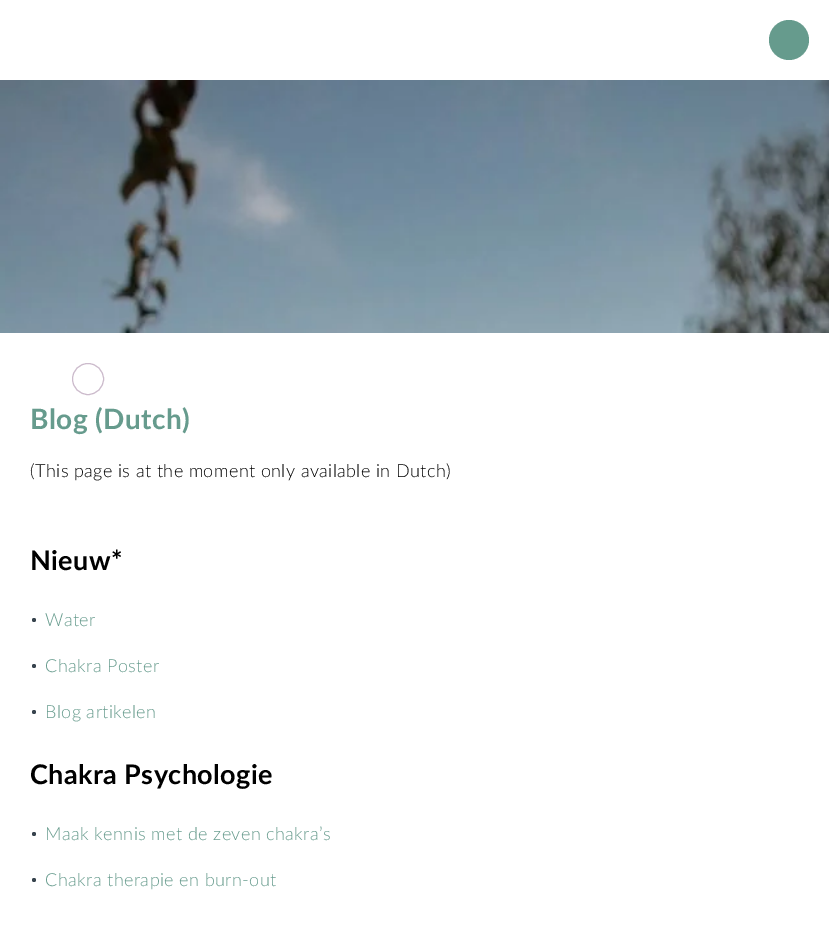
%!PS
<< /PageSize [829 939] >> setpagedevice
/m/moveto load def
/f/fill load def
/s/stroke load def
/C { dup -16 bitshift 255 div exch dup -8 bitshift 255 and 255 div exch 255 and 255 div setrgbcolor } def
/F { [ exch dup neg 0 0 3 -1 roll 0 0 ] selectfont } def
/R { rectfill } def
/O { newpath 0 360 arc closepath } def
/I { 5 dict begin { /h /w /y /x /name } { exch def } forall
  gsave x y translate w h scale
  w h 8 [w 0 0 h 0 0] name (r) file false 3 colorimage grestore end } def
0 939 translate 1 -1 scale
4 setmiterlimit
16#FFFFFF C
0 0 829 939 R
16#669B8D C
789 40 20 O f
(1.rgb) 0 80 829 253 I
16#CCBBCC C
88 379 15.5 O s
/Lato-Bold 28 F
16#669B8D C
30 429 m .4 0 (Blog \(Dutch\)) ashow
/Lato-Light 18 F
16#000000 C
30 477 m .4 0 (\(This page is at the moment only available in Dutch\)) ashow
/Lato-Bold 27 F
30 570 m .4 0 (Nieuw*) ashow
16#38444E C
34 620 2 O f
/Lato-Light 18 F
16#669B8D C
45 626 m .4 0 (Water) ashow
16#38444E C
34 666 2 O f
16#669B8D C
45 672 m .4 0 (Chakra Poster) ashow
16#38444E C
34 712 2 O f
16#669B8D C
45 718 m .4 0 (Blog artikelen) ashow
/Lato-Bold 27 F
16#000000 C
30 784 m .4 0 (Chakra Psychologie) ashow
16#38444E C
34 834 2 O f
/Lato-Light 18 F
16#669B8D C
45 840 m .4 0 (Maak kennis met de zeven chakra’s) ashow
16#38444E C
34 880 2 O f
16#669B8D C
45 886 m .4 0 (Chakra therapie en burn-out) ashow
showpage
